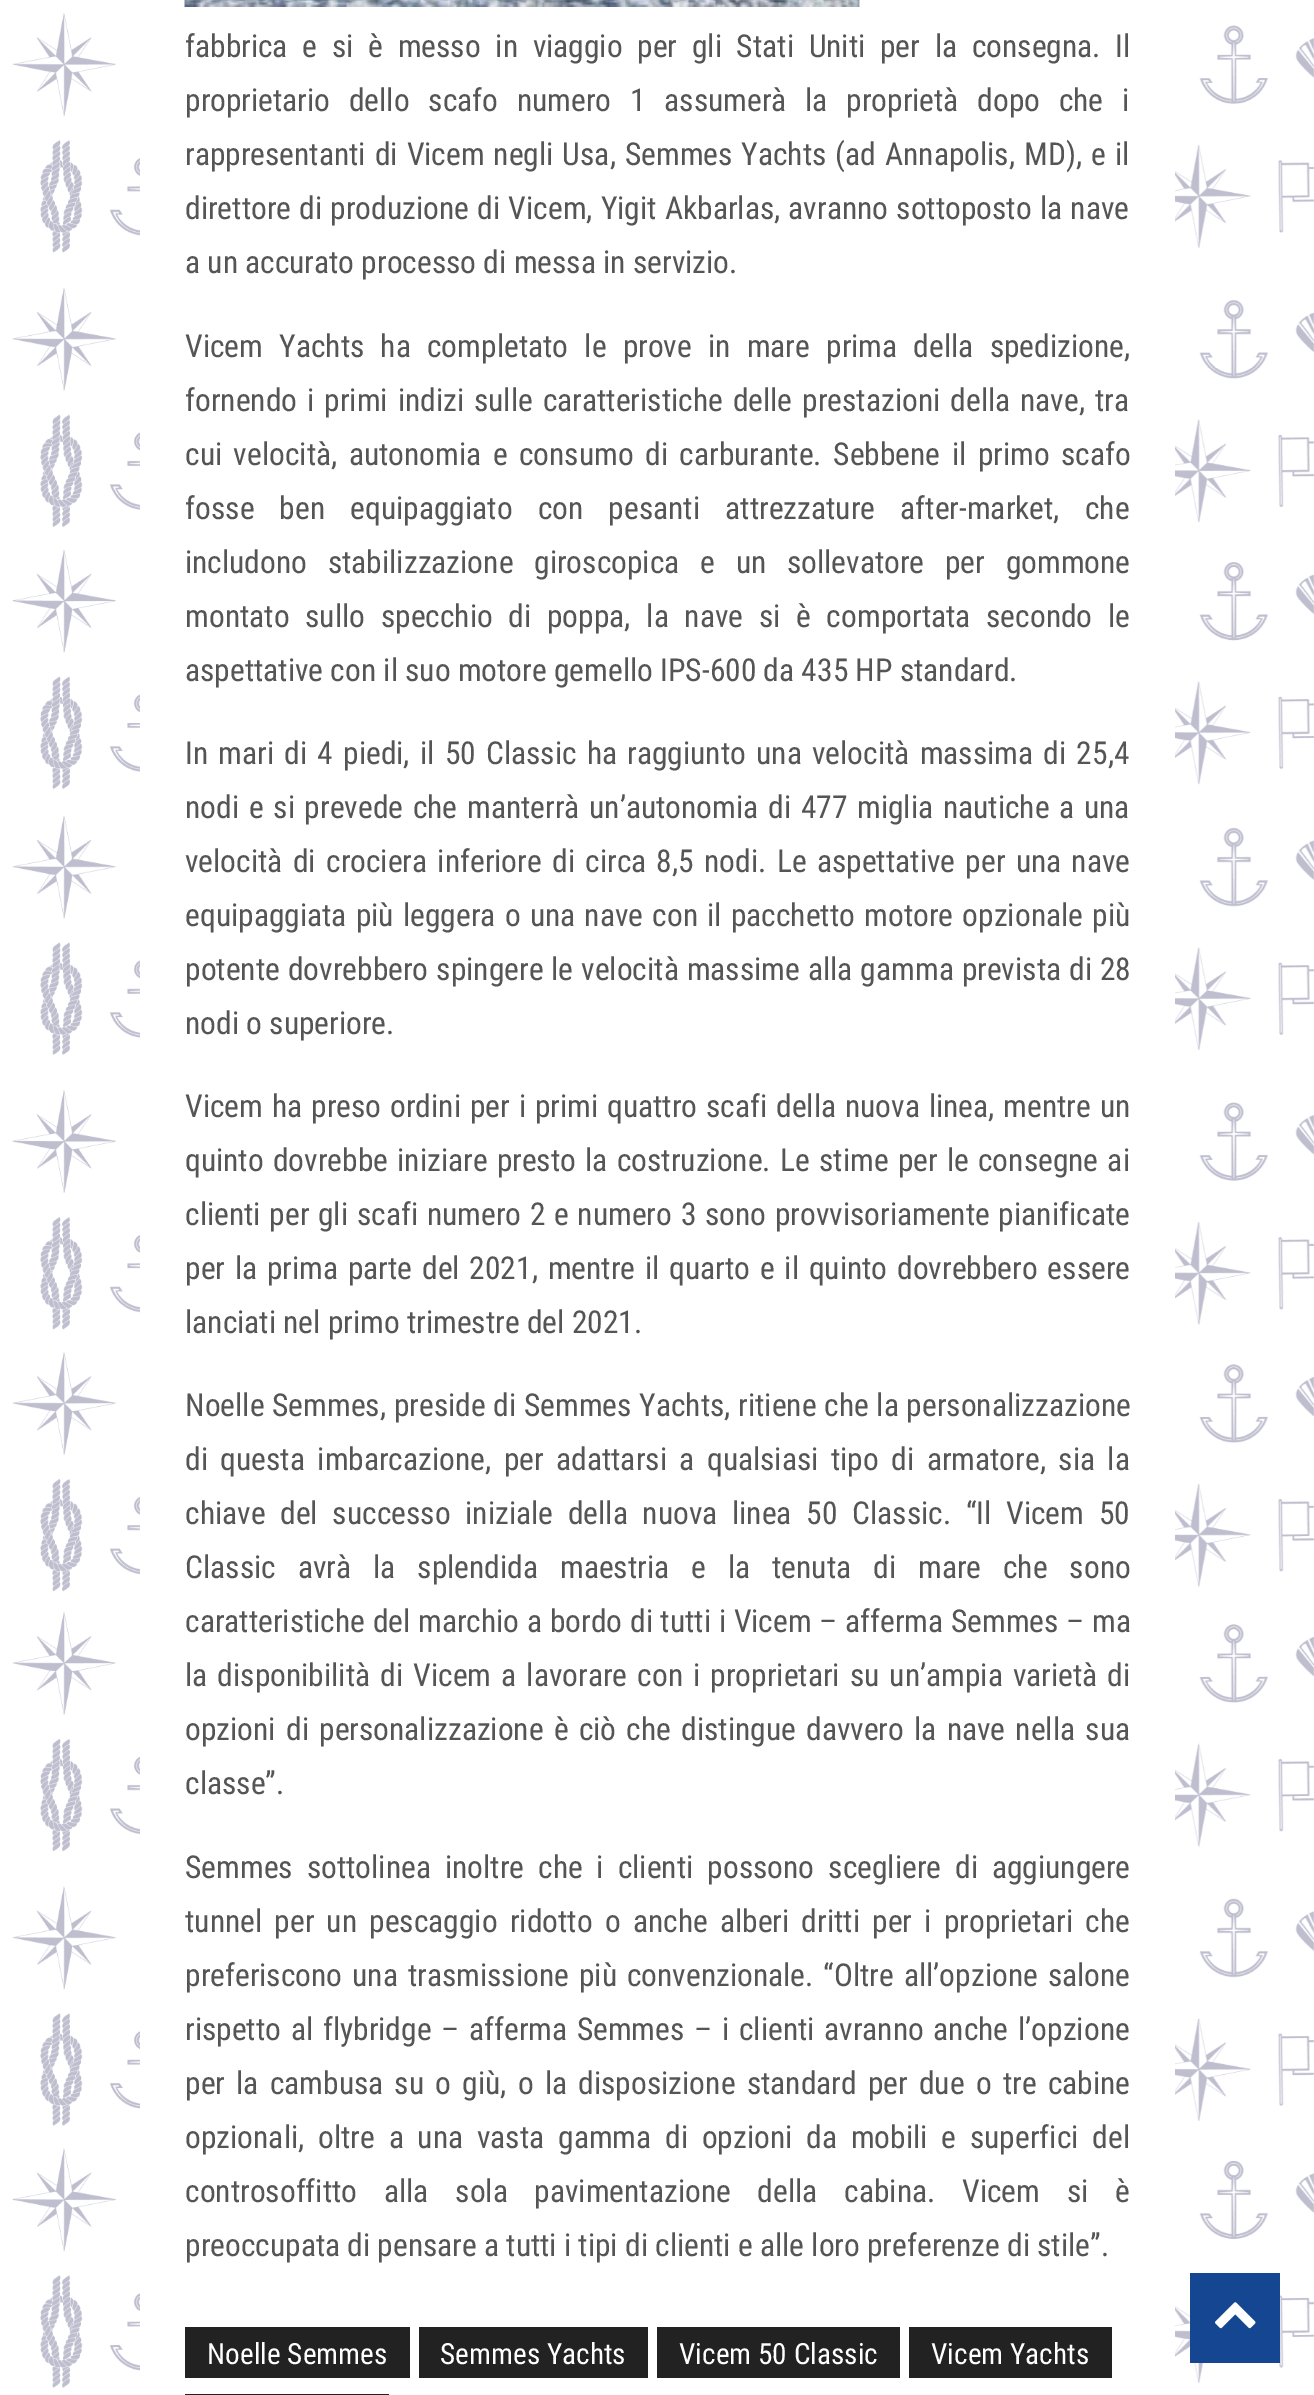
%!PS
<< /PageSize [1314 2395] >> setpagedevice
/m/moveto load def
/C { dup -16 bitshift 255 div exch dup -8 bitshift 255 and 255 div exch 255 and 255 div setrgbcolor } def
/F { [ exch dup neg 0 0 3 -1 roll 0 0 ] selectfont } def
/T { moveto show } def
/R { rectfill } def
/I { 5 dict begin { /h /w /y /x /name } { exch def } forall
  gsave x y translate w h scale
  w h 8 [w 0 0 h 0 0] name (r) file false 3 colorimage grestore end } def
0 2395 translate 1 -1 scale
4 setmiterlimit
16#FFFFFF C
0 0 1314 2395 R
(1.rgb) 12 13 1302 2375 I
140 13 1035 2375 R
(2.rgb) 184 0 676 7 I
/RobotoCondensed-Regular 31.5 F
16#555555 C
185 57 m 7.5 0 32 (fabbrica e si è messo in viaggio per gli Stati Uniti per la consegna. Il) widthshow
185 111 m 11.5 0 32 (proprietario dello scafo numero 1 assumerà la proprietà dopo che i) widthshow
185 165 m 1.75 0 32 (rappresentanti di Vicem negli Usa, Semmes Yachts \(ad Annapolis, MD\), e il) widthshow
185 219 m 1 0 32 (direttore di produzione di Vicem, Yigit Akbarlas, avranno sottoposto la nave) widthshow
(a un accurato processo di messa in servizio.) 185 273 T
185 357 m 9 0 32 (Vicem Yachts ha completato le prove in mare prima della spedizione,) widthshow
185 411 m 2.75 0 32 (fornendo i primi indizi sulle caratteristiche delle prestazioni della nave, tra) widthshow
185 465 m 4.25 0 32 (cui velocità, autonomia e consumo di carburante. Sebbene il primo scafo) widthshow
185 519 m 18 0 32 (fosse ben equipaggiato con pesanti attrezzature after-market, che) widthshow
185 573 m 13.5 0 32 (includono stabilizzazione giroscopica e un sollevatore per gommone) widthshow
185 627 m 8.5 0 32 (montato sullo specchio di poppa, la nave si è comportata secondo le) widthshow
(aspettative con il suo motore gemello IPS-600 da 435 HP standard.) 185 681 T
185 764 m 3 0 32 (In mari di 4 piedi, il 50 Classic ha raggiunto una velocità massima di 25,4) widthshow
185 818 m 2.5 0 32 (nodi e si prevede che manterrà un’autonomia di 477 miglia nautiche a una) widthshow
185 872 m 3.1 0 32 (velocità di crociera inferiore di circa 8,5 nodi. Le aspettative per una nave) widthshow
185 926 m 2 0 32 (equipaggiata più leggera o una nave con il pacchetto motore opzionale più) widthshow
185 980 m .75 0 32 (potente dovrebbero spingere le velocità massime alla gamma prevista di 28) widthshow
(nodi o superiore.) 185 1034 T
185 1117 m 1.7 0 32 (Vicem ha preso ordini per i primi quattro scafi della nuova linea, mentre un) widthshow
185 1171 m 2 0 32 (quinto dovrebbe iniziare presto la costruzione. Le stime per le consegne ai) widthshow
185 1225 m 1.5 0 32 (clienti per gli scafi numero 2 e numero 3 sono provvisoriamente pianificate) widthshow
185 1279 m 2.6 0 32 (per la prima parte del 2021, mentre il quarto e il quinto dovrebbero essere) widthshow
(lanciati nel primo trimestre del 2021.) 185 1333 T
185 1416 m .5 0 32 (Noelle Semmes, preside di Semmes Yachts, ritiene che la personalizzazione) widthshow
185 1470 m 5.25 0 32 (di questa imbarcazione, per adattarsi a qualsiasi tipo di armatore, sia la) widthshow
185 1524 m 7.5 0 32 (chiave del successo iniziale della nuova linea 50 Classic. “Il Vicem 50) widthshow
185 1578 m 14.75 0 32 (Classic avrà la splendida maestria e la tenuta di mare che sono) widthshow
185 1632 m .5 0 32 (caratteristiche del marchio a bordo di tutti i Vicem – afferma Semmes – ma) widthshow
185 1686 m 2.9 0 32 (la disponibilità di Vicem a lavorare con i proprietari su un’ampia varietà di) widthshow
185 1740 m 3 0 32 (opzioni di personalizzazione è ciò che distingue davvero la nave nella sua) widthshow
(classe”.) 185 1794 T
185 1878 m 6.75 0 32 (Semmes sottolinea inoltre che i clienti possono scegliere di aggiungere) widthshow
185 1932 m 5 0 32 (tunnel per un pescaggio ridotto o anche alberi dritti per i proprietari che) widthshow
185 1986 m 2.75 0 32 (preferiscono una trasmissione più convenzionale. “Oltre all’opzione salone) widthshow
185 2040 m 2.5 0 32 (rispetto al flybridge – afferma Semmes – i clienti avranno anche l’opzione) widthshow
185 2094 m 4 0 32 (per la cambusa su o giù, o la disposizione standard per due o tre cabine) widthshow
185 2148 m 6.6 0 32 (opzionali, oltre a una vasta gamma di opzioni da mobili e superfici del) widthshow
185 2202 m 19.5 0 32 (controsoffitto alla sola pavimentazione della cabina. Vicem si è) widthshow
(preoccupata di pensare a tutti i tipi di clienti e alle loro preferenze di stile”.) 185 2256 T
16#222222 C
185 2327 225 51 R
/RobotoCondensed-Regular 29.25 F
16#FFFFFF C
(Noelle Semmes) 207 2364 T
16#222222 C
419 2327 229 51 R
16#FFFFFF C
(Semmes Yachts) 440 2364 T
16#222222 C
657 2327 243 51 R
16#FFFFFF C
(Vicem 50 Classic) 679 2364 T
16#222222 C
909 2327 203 51 R
16#FFFFFF C
(Vicem Yachts) 931 2364 T
16#222222 C
185 2394 204 1 R
16#144691 C
1190 2273 90 90 R
(3.rgb) 1215 2302 41 27 I
showpage
